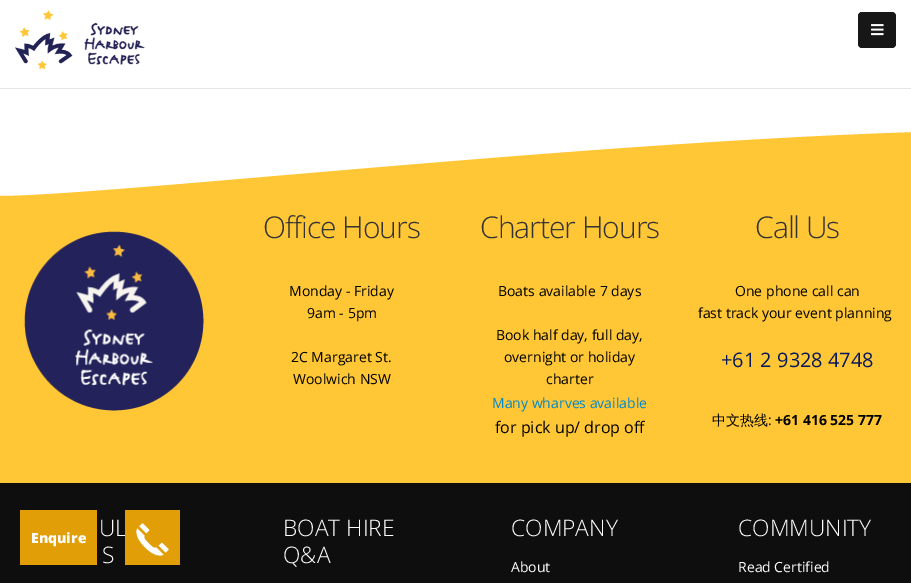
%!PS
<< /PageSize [911 583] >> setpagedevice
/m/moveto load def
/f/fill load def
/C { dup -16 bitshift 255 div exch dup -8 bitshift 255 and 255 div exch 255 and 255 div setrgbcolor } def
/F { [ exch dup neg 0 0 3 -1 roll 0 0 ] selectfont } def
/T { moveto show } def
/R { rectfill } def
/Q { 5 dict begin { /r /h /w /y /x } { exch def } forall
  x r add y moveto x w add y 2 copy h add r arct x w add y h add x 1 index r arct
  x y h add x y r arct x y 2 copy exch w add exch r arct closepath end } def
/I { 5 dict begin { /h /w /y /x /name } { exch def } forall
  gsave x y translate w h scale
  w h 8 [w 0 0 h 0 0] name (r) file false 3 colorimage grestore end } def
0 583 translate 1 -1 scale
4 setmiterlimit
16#FFFFFF C
0 0 911 583 R
16#E6E6E6 C
0 88 911 1 R
(1.rgb) 15 10 130 59 I
16#171717 C
858 12 38 36 4 Q f
(2.rgb) 871 24 13 12 I
(3.rgb) 0 132 911 74 I
16#FFC636 C
0 206 911 277 R
(4.rgb) 24 231 180 180 I
/OpenSans-Light 30 F
16#333333 C
263 238 m -1 0 (Office Hours) ashow
/OpenSans-Regular 14 F
16#000000 C
(Monday - Friday) 289 296 T
(9am - 5pm) 307 318 T
(2C Margaret St.) 291 362 T
(Woolwich NSW) 293 384 T
/OpenSans-Light 30 F
16#333333 C
480 238 m -1 0 (Charter Hours) ashow
/OpenSans-Regular 14 F
16#000000 C
(Boats available 7 days) 498 296 T
(Book half day, full day,) 496 340 T
(overnight or holiday) 504 362 T
(charter) 546 384 T
16#0088CC C
(Many wharves available) 492 408 T
/OpenSans-Regular 16 F
16#000000 C
(for pick up/ drop off) 495 433 T
/OpenSans-Light 30 F
16#333333 C
755 238 m -1 0 (Call Us) ashow
/OpenSans-Regular 14 F
16#000000 C
(One phone call can) 735 296 T
(fast track your event planning) 698 318 T
/OpenSans-Regular 20 F
16#08195A C
(+61 2 9328 4748) 721 367 T
/WenQuanYiZenHei-Medium 14 F
16#000000 C
(中文热线) 712 425 T
/OpenSans-Regular 14 F
(:) 768 425 T
/OpenSans-Bold 14 F
(+61 416 525 777) 775 425 T
16#0E0E0E C
0 483 911 100 R
16#E29E06 C
20 510 77 55 R
/OpenSans-ExtraBold 14 F
16#FFFFFF C
(Enquire) 31 543 T
/OpenSans-Light 22.75 F
(UL) 99 536 T
16#E29E06 C
125 510 55 55 R
(5.rgb) 136 523 33 33 I
16#FFFFFF C
(S) 102 563 T
(BOAT HIRE) 283 536 T
(Q&A) 283 563 T
(COMPANY) 511 536 T
/OpenSans-Regular 14 F
(About) 511 572 T
/OpenSans-Light 22.75 F
(COMMUNITY) 738 536 T
/OpenSans-Regular 14 F
(Read Certified) 738 572 T
showpage
